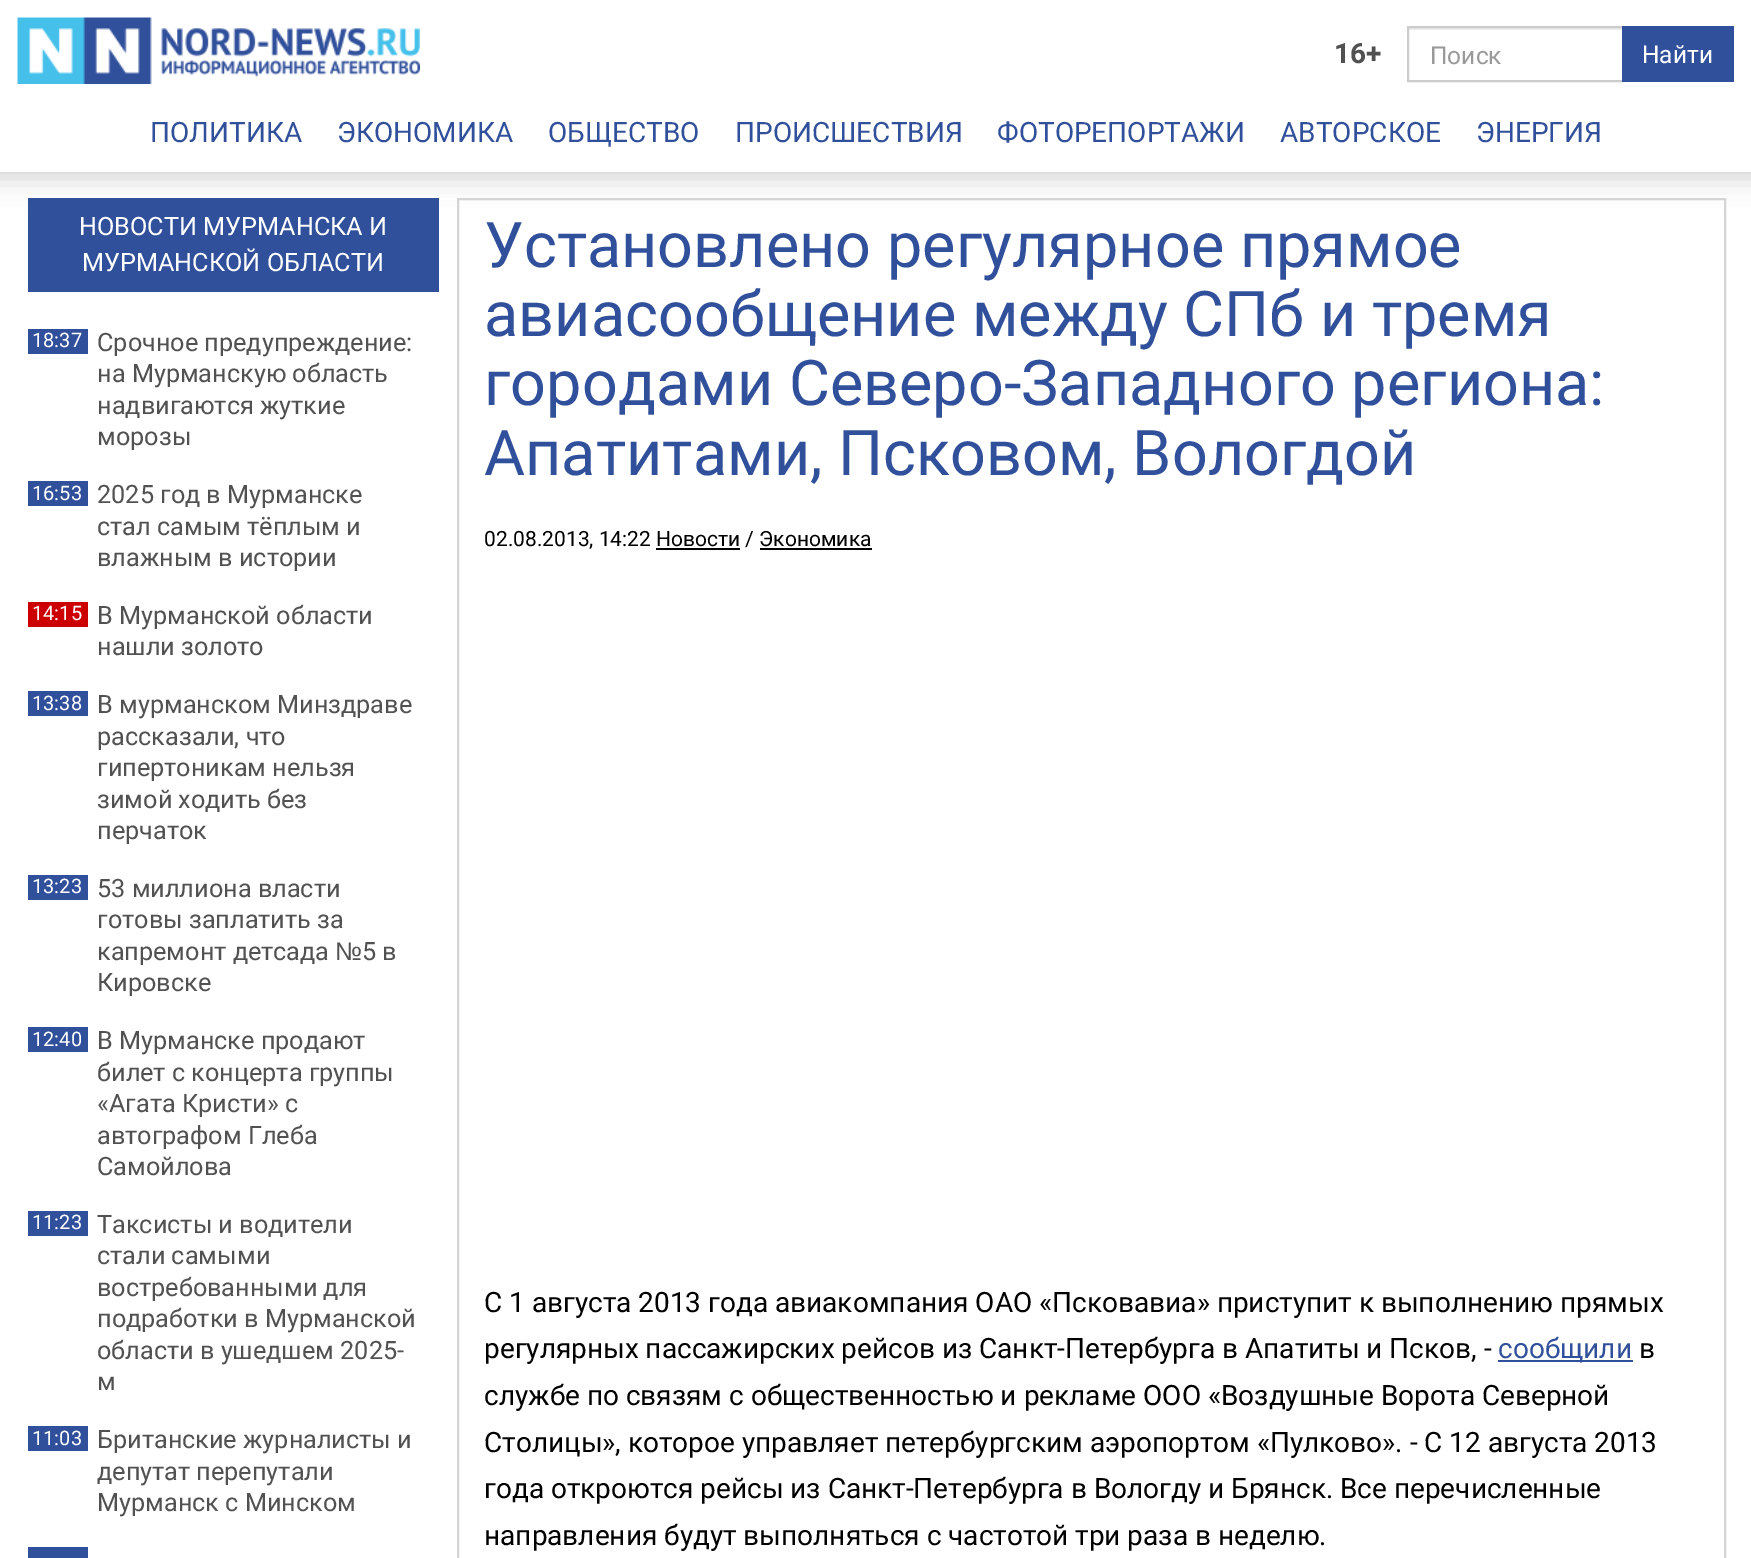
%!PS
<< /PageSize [1751 1558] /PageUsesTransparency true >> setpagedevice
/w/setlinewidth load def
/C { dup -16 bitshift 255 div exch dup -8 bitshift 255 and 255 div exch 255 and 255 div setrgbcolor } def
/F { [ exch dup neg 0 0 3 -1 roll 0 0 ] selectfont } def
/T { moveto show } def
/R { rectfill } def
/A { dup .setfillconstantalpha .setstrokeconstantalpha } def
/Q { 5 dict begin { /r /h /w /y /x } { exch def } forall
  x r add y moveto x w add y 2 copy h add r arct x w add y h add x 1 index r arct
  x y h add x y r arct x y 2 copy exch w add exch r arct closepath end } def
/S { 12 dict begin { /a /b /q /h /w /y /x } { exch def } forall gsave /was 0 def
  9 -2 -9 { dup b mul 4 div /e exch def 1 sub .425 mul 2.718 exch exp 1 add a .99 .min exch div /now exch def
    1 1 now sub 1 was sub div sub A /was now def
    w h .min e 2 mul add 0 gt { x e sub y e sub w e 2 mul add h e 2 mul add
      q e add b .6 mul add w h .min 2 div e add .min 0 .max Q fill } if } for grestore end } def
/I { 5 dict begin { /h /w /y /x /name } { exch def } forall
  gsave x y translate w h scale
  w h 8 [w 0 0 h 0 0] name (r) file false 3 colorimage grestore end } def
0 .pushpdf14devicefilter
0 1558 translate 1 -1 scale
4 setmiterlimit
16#FFFFFF C
0 0 1751 1558 R
16#CBCBCB C
-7 -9 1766 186 0 14 1 S
16#FFFFFF C
0 0 1751 172 R
(1.rgb) 17 17 403 67 I
/Roboto-Bold 28 F
16#515151 C
(16+) 1334 63 T
16#ECECEC C
1409 28 213 2 R
16#CCCCCC C
2 w
1408 27 215 54 rectstroke
/Roboto-Regular 24.5 F
16#999999 C
(Поиск) 1430 64 T
16#31509B C
1622 26 112 56 R
16#FFFFFF C
(Найти) 1642 63 T
/Roboto-Regular 28 F
16#31509B C
(ПОЛИТИКА) 150 142 T
(ЭКОНОМИКА) 337 142 T
(ОБЩЕСТВО) 548 142 T
(ПРОИСШЕСТВИЯ) 735 142 T
(ФОТОРЕПОРТАЖИ) 997 142 T
(АВТОРСКОЕ) 1280 142 T
(ЭНЕРГИЯ) 1476 142 T
16#FFFFFF C
28 198 1696 2 R
16#31509B C
28 198 411 94 R
/Roboto-Regular 25.25 F
16#FFFFFF C
(НОВОСТИ МУРМАНСКА И) 79 235 T
(МУРМАНСКОЙ ОБЛАСТИ) 82 271 T
16#31509B C
28 329 60 25 R
/Roboto-Regular 20 F
16#FFFFFF C
(18:37) 32 347 T
/Roboto-Regular 25.25 F
16#515151 C
(Срочное предупреждение:) 97 351 T
(на Мурманскую область) 97 382 T
(надвигаются жуткие) 97 414 T
(морозы) 97 445 T
16#31509B C
28 481 60 25 R
/Roboto-Regular 20 F
16#FFFFFF C
(16:53) 32 500 T
/Roboto-Regular 25.25 F
16#515151 C
(2025 год в Мурманске) 97 503 T
(стал самым тёплым и) 97 535 T
(влажным в истории) 97 566 T
16#CC0000 C
28 602 60 25 R
/Roboto-Regular 20 F
16#FFFFFF C
(14:15) 32 620 T
/Roboto-Regular 25.25 F
16#515151 C
(В Мурманской области) 97 624 T
(нашли золото) 97 655 T
16#31509B C
28 691 60 25 R
/Roboto-Regular 20 F
16#FFFFFF C
(13:38) 32 710 T
/Roboto-Regular 25.25 F
16#515151 C
(В мурманском Минздраве) 97 713 T
(рассказали, что) 97 745 T
(гипертоникам нельзя) 97 776 T
(зимой ходить без) 97 808 T
(перчаток) 97 839 T
16#31509B C
28 875 60 25 R
/Roboto-Regular 20 F
16#FFFFFF C
(13:23) 32 893 T
/Roboto-Regular 25.25 F
16#515151 C
(53 миллиона власти) 97 897 T
(готовы заплатить за) 97 928 T
(капремонт детсада) 97 960 T
/LiberationSans-Regular 25.25 F
(№) 335 960 T
/Roboto-Regular 25.25 F
(5 в) 362 960 T
(Кировске) 97 991 T
16#31509B C
28 1027 60 25 R
/Roboto-Regular 20 F
16#FFFFFF C
(12:40) 32 1046 T
/Roboto-Regular 25.25 F
16#515151 C
(В Мурманске продают) 97 1049 T
(билет с концерта группы) 97 1081 T
(«Агата Кристи» с) 97 1112 T
(автографом Глеба) 97 1144 T
(Самойлова) 97 1175 T
16#31509B C
28 1211 60 25 R
/Roboto-Regular 20 F
16#FFFFFF C
(11:23) 32 1229 T
/Roboto-Regular 25.25 F
16#515151 C
(Таксисты и водители) 97 1233 T
(стали самыми) 97 1264 T
(востребованными для) 97 1296 T
(подработки в Мурманской) 97 1327 T
(области в ушедшем 2025-) 97 1359 T
(м) 97 1390 T
16#31509B C
28 1426 60 25 R
/Roboto-Regular 20 F
16#FFFFFF C
(11:03) 32 1445 T
/Roboto-Regular 25.25 F
16#515151 C
(Британские журналисты и) 97 1448 T
(депутат перепутали) 97 1480 T
(Мурманск с Минском) 97 1511 T
16#31509B C
28 1547 60 11 R
16#D4D4D4 C
458 199 1267 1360 rectstroke
/Roboto-Regular 63 F
16#31509B C
(Установлено регулярное прямое) 484 267 T
(авиасообщение между СПб и тремя) 484 336 T
(городами Северо-Западного региона:) 484 405 T
(Апатитами, Псковом, Вологдой) 484 475 T
/Roboto-Regular 21 F
16#000000 C
(02.08.2013, 14:22 Новости / Экономика) 484 546 T
656 548 84 2 R
760 548 112 2 R
/Roboto-Regular 28 F
(С 1 августа 2013 года авиакомпания ОАО «Псковавиа» приступит к выполнению прямых) 484 1312 T
(регулярных пассажирских рейсов из Санкт-Петербурга в Апатиты и Псков, -) 484 1358 T
16#31509B C
1498 1360 135 2 R
(сообщили) 1498 1358 T
16#000000 C
(в) 1639 1358 T
(службе по связям с общественностью и рекламе ООО «Воздушные Ворота Северной) 484 1405 T
(Столицы», которое управляет петербургским аэропортом «Пулково». - С 12 августа 2013) 484 1452 T
(года откроются рейсы из Санкт-Петербурга в Вологду и Брянск. Все перечисленные) 484 1498 T
(направления будут выполняться с частотой три раза в неделю.) 484 1545 T
.poppdf14devicefilter showpage
